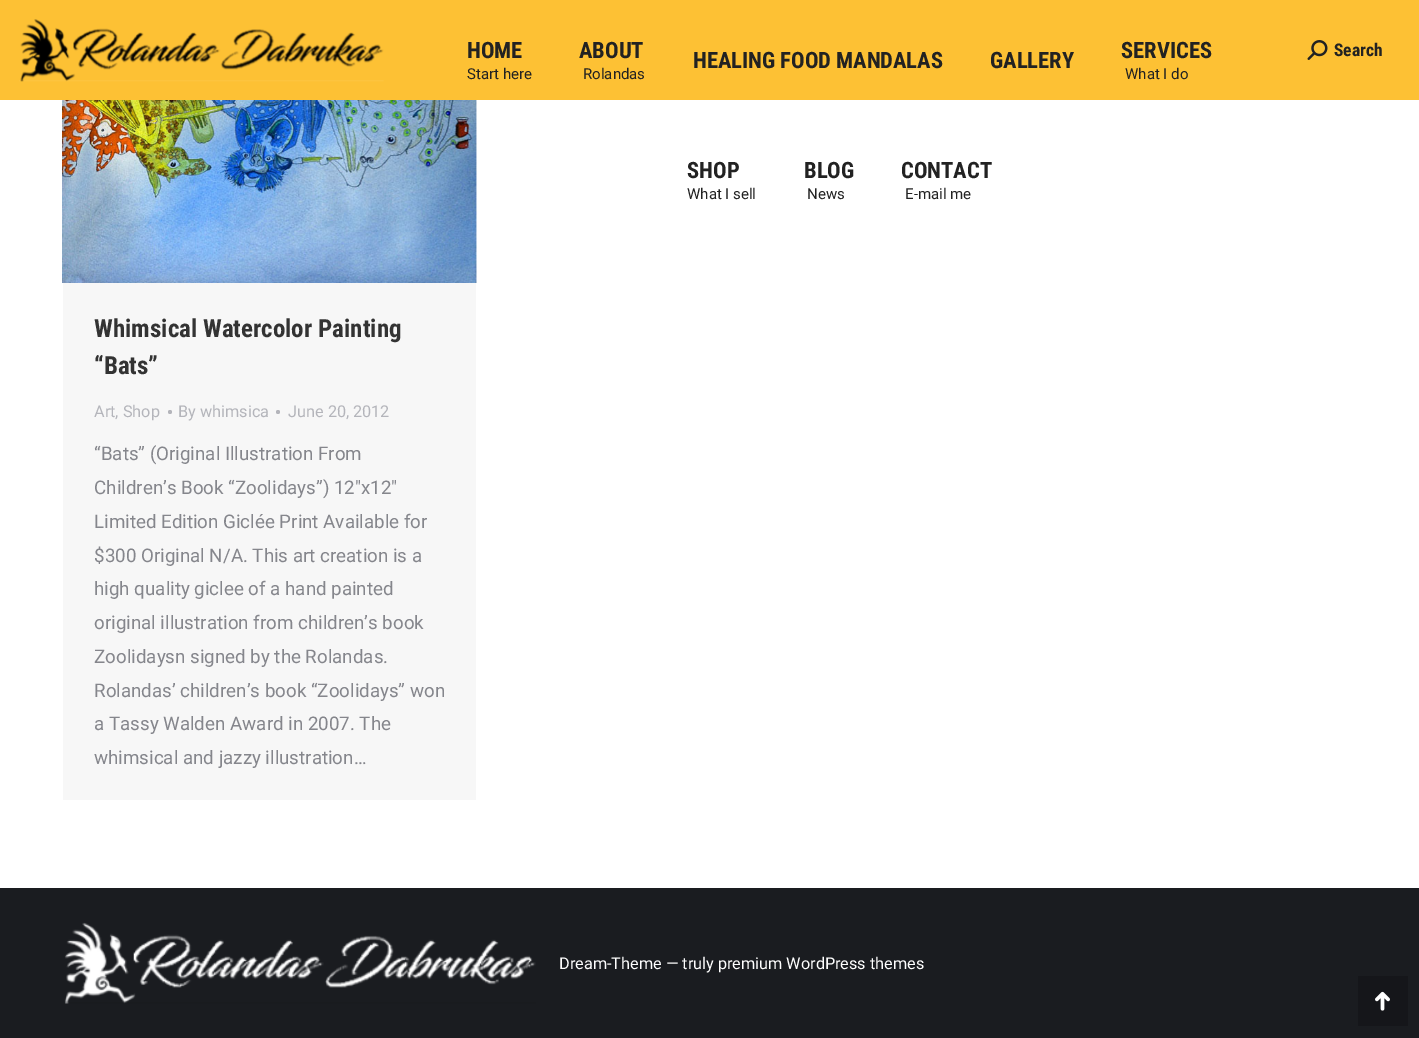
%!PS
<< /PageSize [1419 1038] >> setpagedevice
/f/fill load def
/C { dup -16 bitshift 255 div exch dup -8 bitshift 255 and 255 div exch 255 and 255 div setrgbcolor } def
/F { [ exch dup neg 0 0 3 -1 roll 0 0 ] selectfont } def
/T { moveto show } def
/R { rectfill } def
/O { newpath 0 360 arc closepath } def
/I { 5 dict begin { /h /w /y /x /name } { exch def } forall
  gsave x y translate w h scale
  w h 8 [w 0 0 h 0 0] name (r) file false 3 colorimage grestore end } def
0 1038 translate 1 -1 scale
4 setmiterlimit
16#FFFFFF C
0 0 1419 1038 R
16#FDC134 C
0 0 1419 100 R
(1.rgb) 19 19 365 63 I
/RobotoCondensed-Bold 22.5 F
16#222222 C
(HOME) 467 58 T
/Roboto-Regular 15 F
(Start here) 467 79 T
/RobotoCondensed-Bold 22.5 F
(ABOUT) 579 58 T
/Roboto-Regular 15 F
(Rolandas) 583 79 T
/RobotoCondensed-Bold 22.5 F
(HEALING FOOD MANDALAS) 693 68 T
(GALLERY) 990 68 T
(SERVICES) 1121 58 T
/Roboto-Regular 15 F
(What I do) 1125 79 T
/RobotoCondensed-Bold 22.5 F
(SHOP) 687 178 T
/Roboto-Regular 15 F
(What I sell) 687 199 T
/RobotoCondensed-Bold 22.5 F
(BLOG) 804 178 T
/Roboto-Regular 15 F
(News) 807 199 T
/RobotoCondensed-Bold 22.5 F
(CONTACT) 901 178 T
/Roboto-Regular 15 F
(E-mail me) 905 199 T
(2.rgb) 1307 40 21 20 I
/RobotoCondensed-Bold 17.5 F
(Search) 1334 56 T
16#F7F7F7 C
63 283 413 517 R
(3.rgb) 62 100 415 183 I
/RobotoCondensed-Bold 25 F
16#333333 C
(Whimsical Watercolor Painting) 94 337 T
(“Bats”) 94 374 T
/Roboto-Regular 16.25 F
16#B4B5BB C
(Art, Shop) 94 417 T
170 412 2 O f
(By whimsica) 178 417 T
278 412 2 O f
(June 20, 2012) 288 417 T
/Roboto-Regular 18.75 F
16#85868C C
(“Bats” \(Original Illustration From) 94 460 T
(Children’s Book “Zoolidays”\) 12″x12″) 94 494 T
(Limited Edition Giclée Print Available for) 94 528 T
($300 Original N/A. This art creation is a) 94 562 T
(high quality giclee of a hand painted) 94 595 T
(original illustration from children’s book) 94 629 T
(Zoolidaysn signed by the Rolandas.) 94 663 T
(Rolandas’ children’s book “Zoolidays” won) 94 697 T
(a Tassy Walden Award in 2007. The) 94 730 T
(whimsical and jazzy illustration…) 94 764 T
16#1A1C20 C
0 888 1419 150 R
(4.rgb) 64 922 472 82 I
/Roboto-Regular 16.25 F
16#FFFFFF C
(Dream-Theme — truly premium WordPress themes) 559 969 T
16#15161A C
1358 976 50 50 R
(5.rgb) 1375 991 15 20 I
showpage
